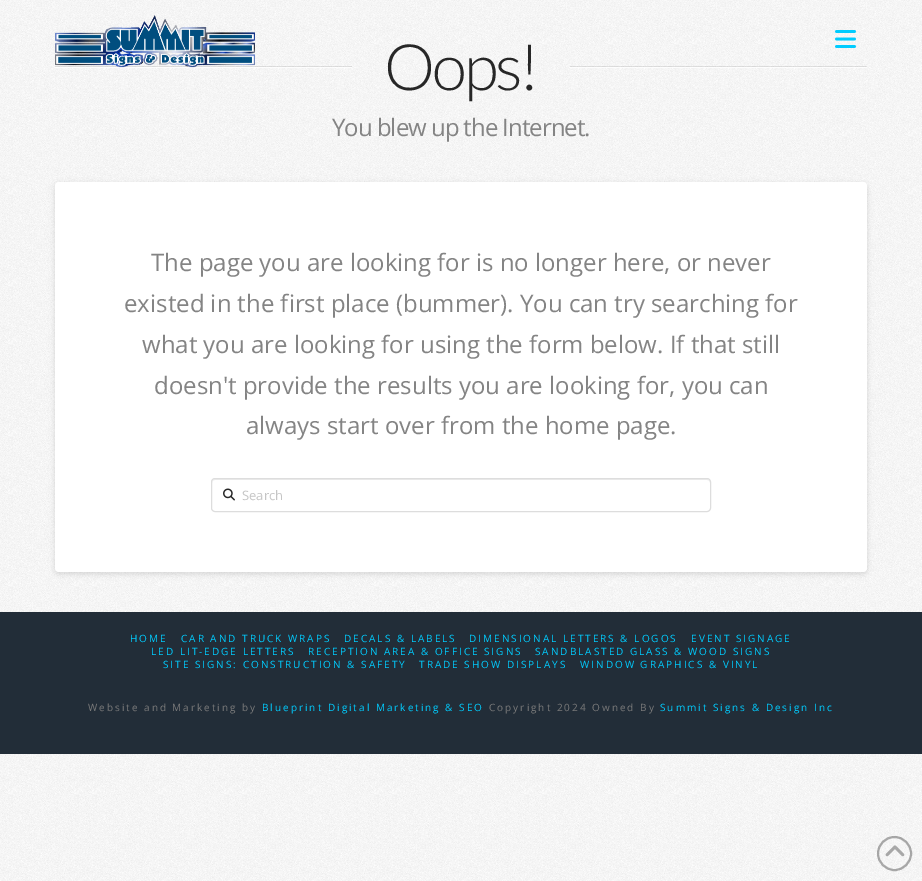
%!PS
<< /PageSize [922 881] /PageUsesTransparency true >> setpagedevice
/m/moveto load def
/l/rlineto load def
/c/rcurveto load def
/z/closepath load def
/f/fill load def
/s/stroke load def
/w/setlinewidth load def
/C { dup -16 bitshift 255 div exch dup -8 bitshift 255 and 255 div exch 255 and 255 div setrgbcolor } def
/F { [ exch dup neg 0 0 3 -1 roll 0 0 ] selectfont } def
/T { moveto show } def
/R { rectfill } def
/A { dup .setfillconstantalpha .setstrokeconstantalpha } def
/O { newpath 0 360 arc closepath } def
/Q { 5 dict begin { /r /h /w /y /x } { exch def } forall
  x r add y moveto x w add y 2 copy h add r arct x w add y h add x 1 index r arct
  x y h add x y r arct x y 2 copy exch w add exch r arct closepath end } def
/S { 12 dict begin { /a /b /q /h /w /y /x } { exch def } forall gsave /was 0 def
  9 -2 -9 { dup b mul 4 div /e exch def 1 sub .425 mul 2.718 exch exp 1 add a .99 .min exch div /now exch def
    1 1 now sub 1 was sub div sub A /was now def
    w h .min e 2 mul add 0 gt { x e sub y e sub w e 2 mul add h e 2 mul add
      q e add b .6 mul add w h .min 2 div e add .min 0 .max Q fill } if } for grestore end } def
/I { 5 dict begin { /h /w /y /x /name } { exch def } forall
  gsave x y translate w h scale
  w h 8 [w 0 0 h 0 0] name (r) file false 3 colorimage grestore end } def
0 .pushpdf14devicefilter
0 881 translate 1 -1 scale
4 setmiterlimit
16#FFFFFF C
0 0 922 881 R
(1.rgb) 0 0 922 881 I
0.8 A
55 67 297 1 R
0.1 A
16#000000 C
55 66 297 1 R
1 A
(2.rgb) 55 15 200 53 I
(3.rgb) 835 30 21 18 I
/Lato-Light 64 F
16#272727 C
384 90 m -3 0 (Oops!) ashow
0.8 A
16#FFFFFF C
570 67 297 1 R
0.1 A
16#000000 C
570 66 297 1 R
/OpenSans-Regular 24 F
1 A
16#848484 C
332 136 m -1 0 (You blew up the Internet.) ashow
16#000000 C
55 184 812 390 4 3 .13 S
16#FFFFFF C
55 182 812 390 4 Q f
16#848484 C
(The page you are looking for is no longer here, or never) 151 271 T
(existed in the first place \(bummer\). You can try searching for) 124 312 T
(what you are looking for using the form below. If that still) 142 353 T
(doesn't provide the results you are looking for, you can) 154 394 T
(always start over from the home page.) 246 434 T
16#ECECEC C
215 480 m 492 0 l 2 0 3 1 3 3 c 0 -2 -1 -4 -3 -4 c -492 0 l -2 0 -3 2 -3 4 c 0 -2 1 -3 3 -3 c z f
16#DDDDDD C
211.5 478.5 499 33 3.5 Q s
(4.rgb) 223 488 12 13 I
/OpenSans-Regular 13 F
16#C5C5C5 C
(Search) 242 500 T
16#222D38 C
0 612 922 142 R
/OpenSans-Regular 10 F
16#00CCFF C
130 642 m 2 0 (HOME) ashow
181 642 m 2 0 (CAR AND TRUCK WRAPS) ashow
344 642 m 2 0 (DECALS & LABELS) ashow
469 642 m 2 0 (DIMENSIONAL LETTERS & LOGOS) ashow
691 642 m 2 0 (EVENT SIGNAGE) ashow
151 655 m 2 0 (LED LIT-EDGE LETTERS) ashow
308 655 m 2 0 (RECEPTION AREA & OFFICE SIGNS) ashow
535 655 m 2 0 (SANDBLASTED GLASS & WOOD SIGNS) ashow
163 668 m 2 0 (SITE SIGNS: CONSTRUCTION & SAFETY) ashow
419 668 m 2 0 (TRADE SHOW DISPLAYS) ashow
580 668 m 2 0 (WINDOW GRAPHICS & VINYL) ashow
16#7A7A7A C
88 711 m 2 0 (Website and Marketing by) ashow
16#00CCFF C
262 711 m 2 0 (Blueprint Digital Marketing & SEO) ashow
16#7A7A7A C
489 711 m 2 0 (Copyright 2024 Owned By) ashow
16#00CCFF C
660 711 m 2 0 (Summit Signs & Design Inc) ashow
0.38 A
16#272727 C
2 w
894.5 853.5 16.5 O s
1 A
(5.rgb) 885 845 20 12 I
.poppdf14devicefilter showpage
